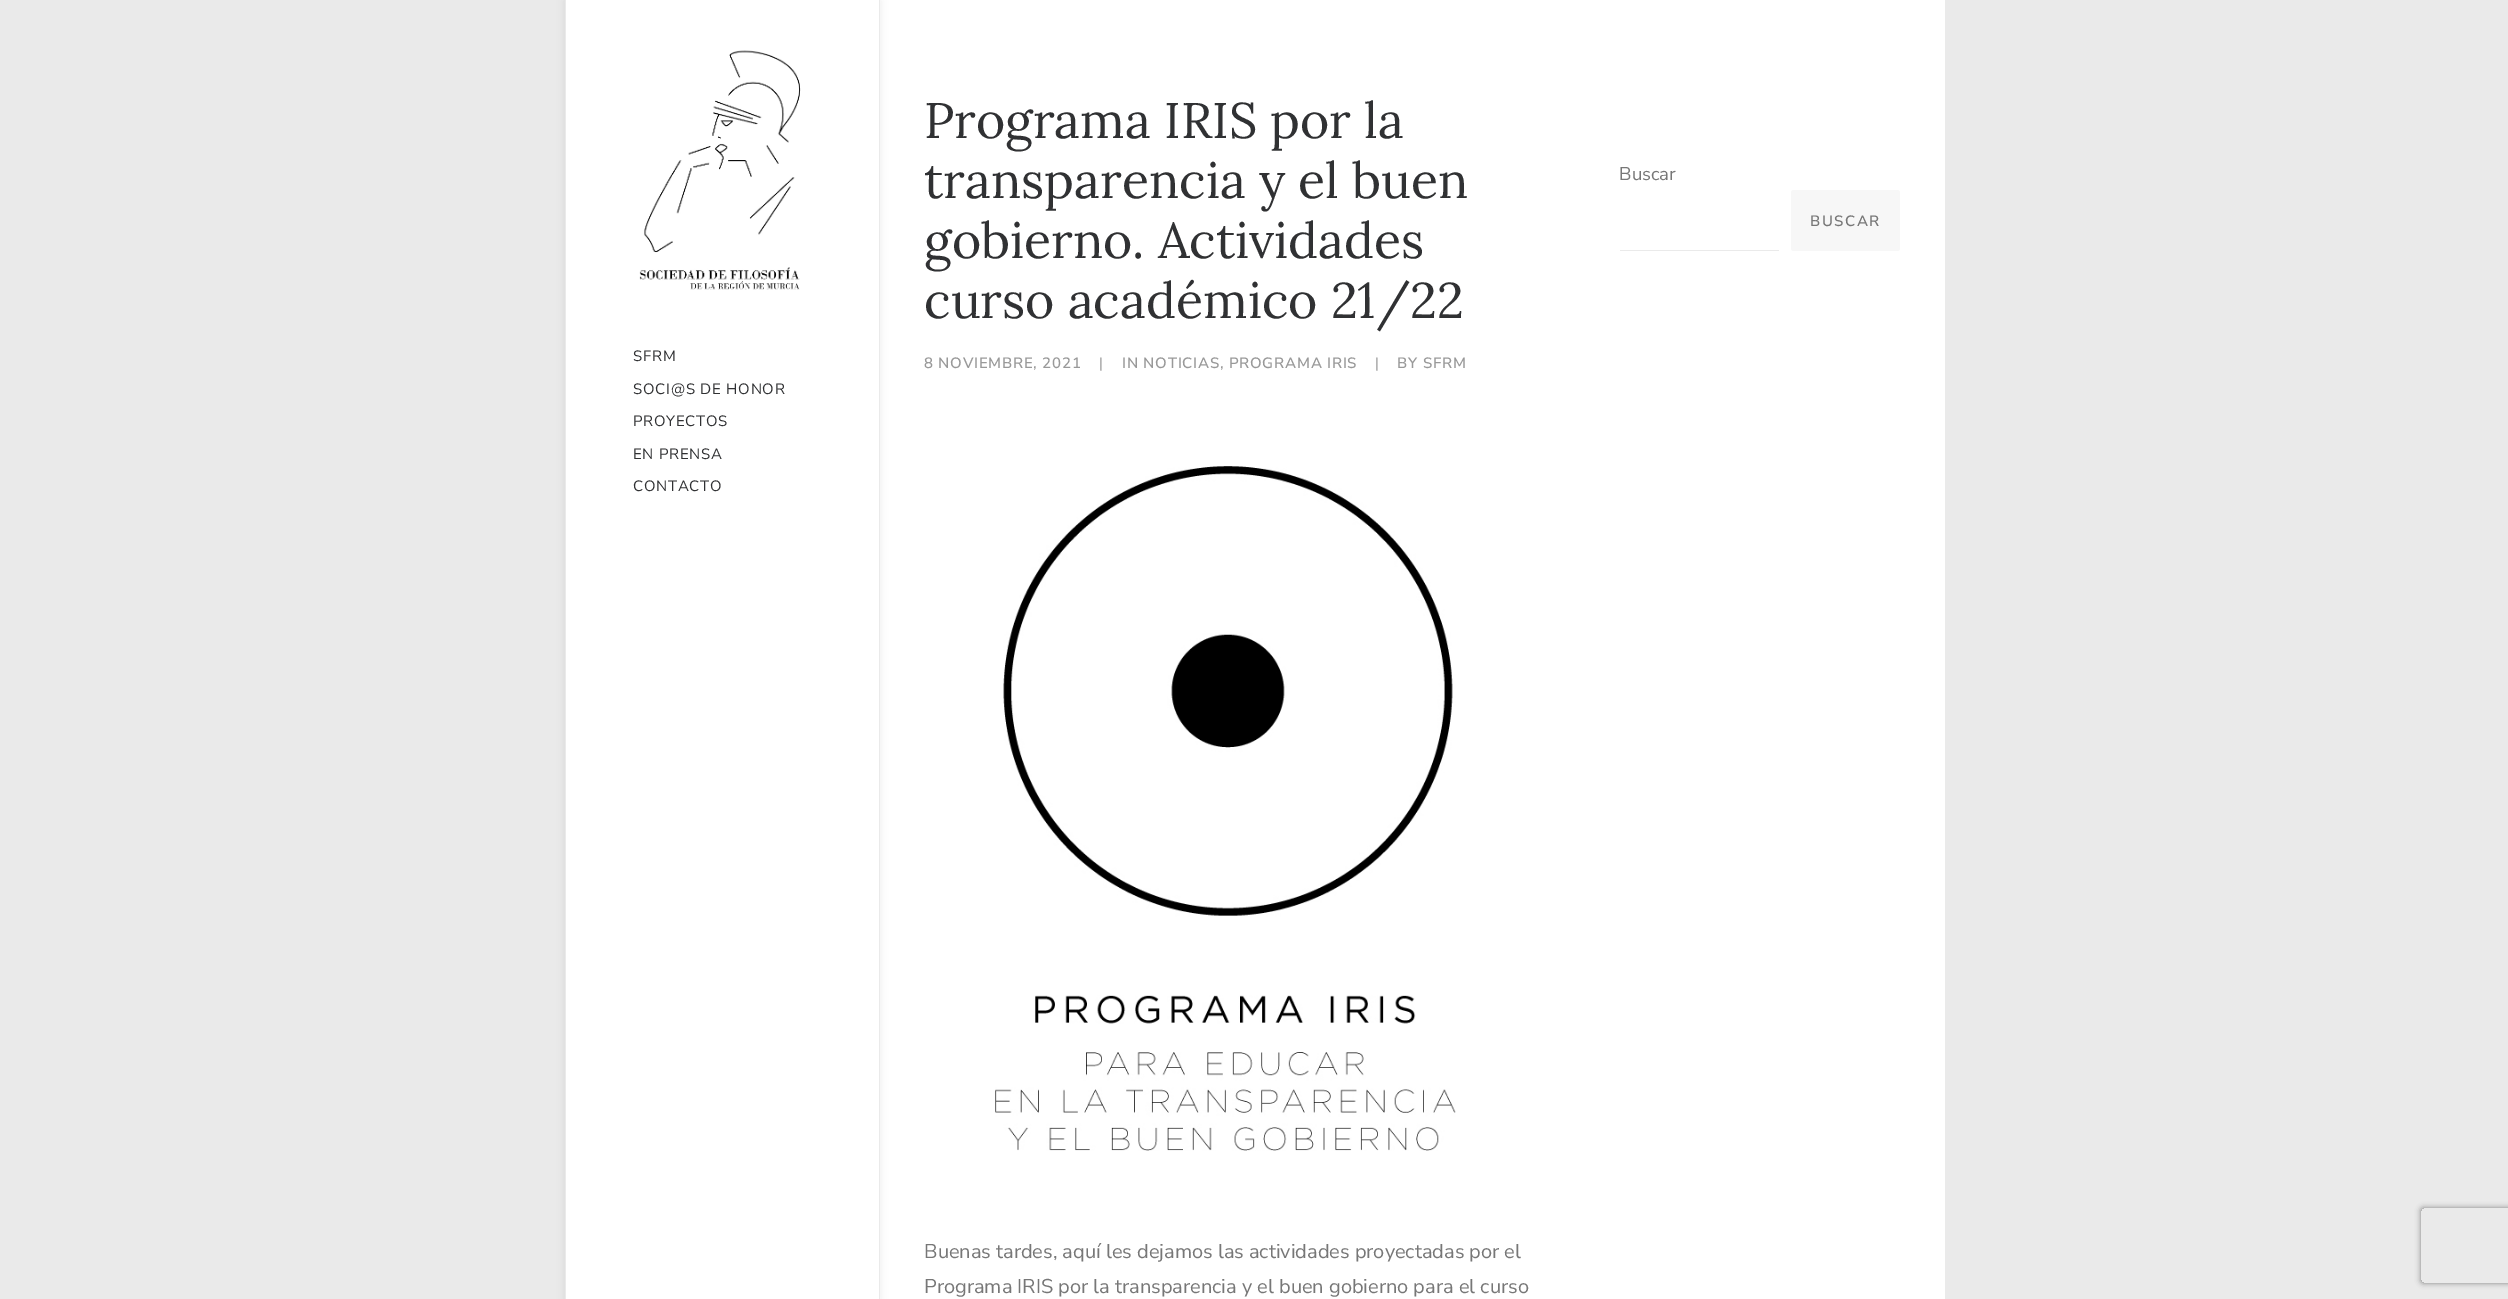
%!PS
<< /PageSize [2508 1299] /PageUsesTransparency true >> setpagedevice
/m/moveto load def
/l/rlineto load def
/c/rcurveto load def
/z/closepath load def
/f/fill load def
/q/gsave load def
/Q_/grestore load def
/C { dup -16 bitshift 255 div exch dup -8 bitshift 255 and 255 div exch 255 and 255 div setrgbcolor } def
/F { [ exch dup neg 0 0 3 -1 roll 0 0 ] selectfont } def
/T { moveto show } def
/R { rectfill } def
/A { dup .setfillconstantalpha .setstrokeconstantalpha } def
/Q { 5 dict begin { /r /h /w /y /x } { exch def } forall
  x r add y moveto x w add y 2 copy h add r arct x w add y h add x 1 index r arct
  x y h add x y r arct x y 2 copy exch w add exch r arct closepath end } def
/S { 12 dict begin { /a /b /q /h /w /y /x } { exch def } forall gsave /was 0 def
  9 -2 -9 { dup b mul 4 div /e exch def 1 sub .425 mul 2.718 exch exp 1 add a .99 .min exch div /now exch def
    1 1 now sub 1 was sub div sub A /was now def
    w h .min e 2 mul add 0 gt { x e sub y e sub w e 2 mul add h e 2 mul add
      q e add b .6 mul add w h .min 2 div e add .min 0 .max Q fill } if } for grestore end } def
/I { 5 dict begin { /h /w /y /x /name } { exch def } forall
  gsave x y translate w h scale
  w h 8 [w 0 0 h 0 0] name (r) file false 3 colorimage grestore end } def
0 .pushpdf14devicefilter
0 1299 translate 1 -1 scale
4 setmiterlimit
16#EAEAEA C
0 0 2508 1299 R
16#FFFFFF C
880 0 1065 1299 R
16#000000 C
566 1 313 1298 0 4.5 .1 S
16#FFFFFF C
566 0 313 1299 R
16#EAEAEA C
879 0 1 1299 R
565 0 1 1299 R
(1.rgb) 639 50 162 240 I
/NunitoSans-Regular 15 F
16#303133 C
633 361 m .75 0 (SFRM) ashow
633 394 m .75 0 (SOCI@S DE HONOR) ashow
633 426 m .75 0 (PROYECTOS) ashow
633 459 m .75 0 (EN PRENSA) ashow
633 491 m .75 0 (CONTACTO) ashow
/Lora-Regular 50 F
(Programa IRIS por la) 924 138 T
(transparencia y el buen) 924 198 T
(gobierno. Actividades) 924 258 T
(curso académico 21/22) 924 318 T
/NunitoSans-SemiBold 15 F
16#999999 C
924 368 m .75 0 (8 NOVIEMBRE, 2021) ashow
/NunitoSans-Regular 15 F
1099 368 m .75 0 (|) ashow
/NunitoSans-SemiBold 15 F
1122 368 m .75 0 (IN NOTICIAS, PROGRAMA IRIS) ashow
/NunitoSans-Regular 15 F
1375 368 m .75 0 (|) ashow
/NunitoSans-SemiBold 15 F
1397 368 m .75 0 (BY SFRM) ashow
(2.rgb) 995 466 461 685 I
/NunitoSans-Regular 20 F
16#777777 C
(Buenas tardes, aquí les dejamos las actividades proyectadas por el) 924 1258 T
(Programa IRIS por la transparencia y el buen gobierno para el curso) 924 1293 T
/NunitoSans-Regular 18.5 F
(Buscar) 1619 180 T
16#F7F7F7 C
1791 190 109 61 2.5 Q f
/NunitoSans-SemiBold 15 F
16#777777 C
1810 226 m 1.5 0 (BUSCAR) ashow
16#EAEAEA C
1620 250 159 1 R
q
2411 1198 m 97 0 l 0 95 l -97 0 l z 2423.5 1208 m 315 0 l 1.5 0 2.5 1 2.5 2.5 c 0 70 l 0 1.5 -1 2.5 -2.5 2.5 c -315 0 l -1.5 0 -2.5 -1 -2.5 -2.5 c 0 -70 l 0 -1.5 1 -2.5 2.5 -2.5 c z eoclip newpath
16#808080 C
2421 1208 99 75 2.5 3 1 S
Q_
.poppdf14devicefilter showpage
